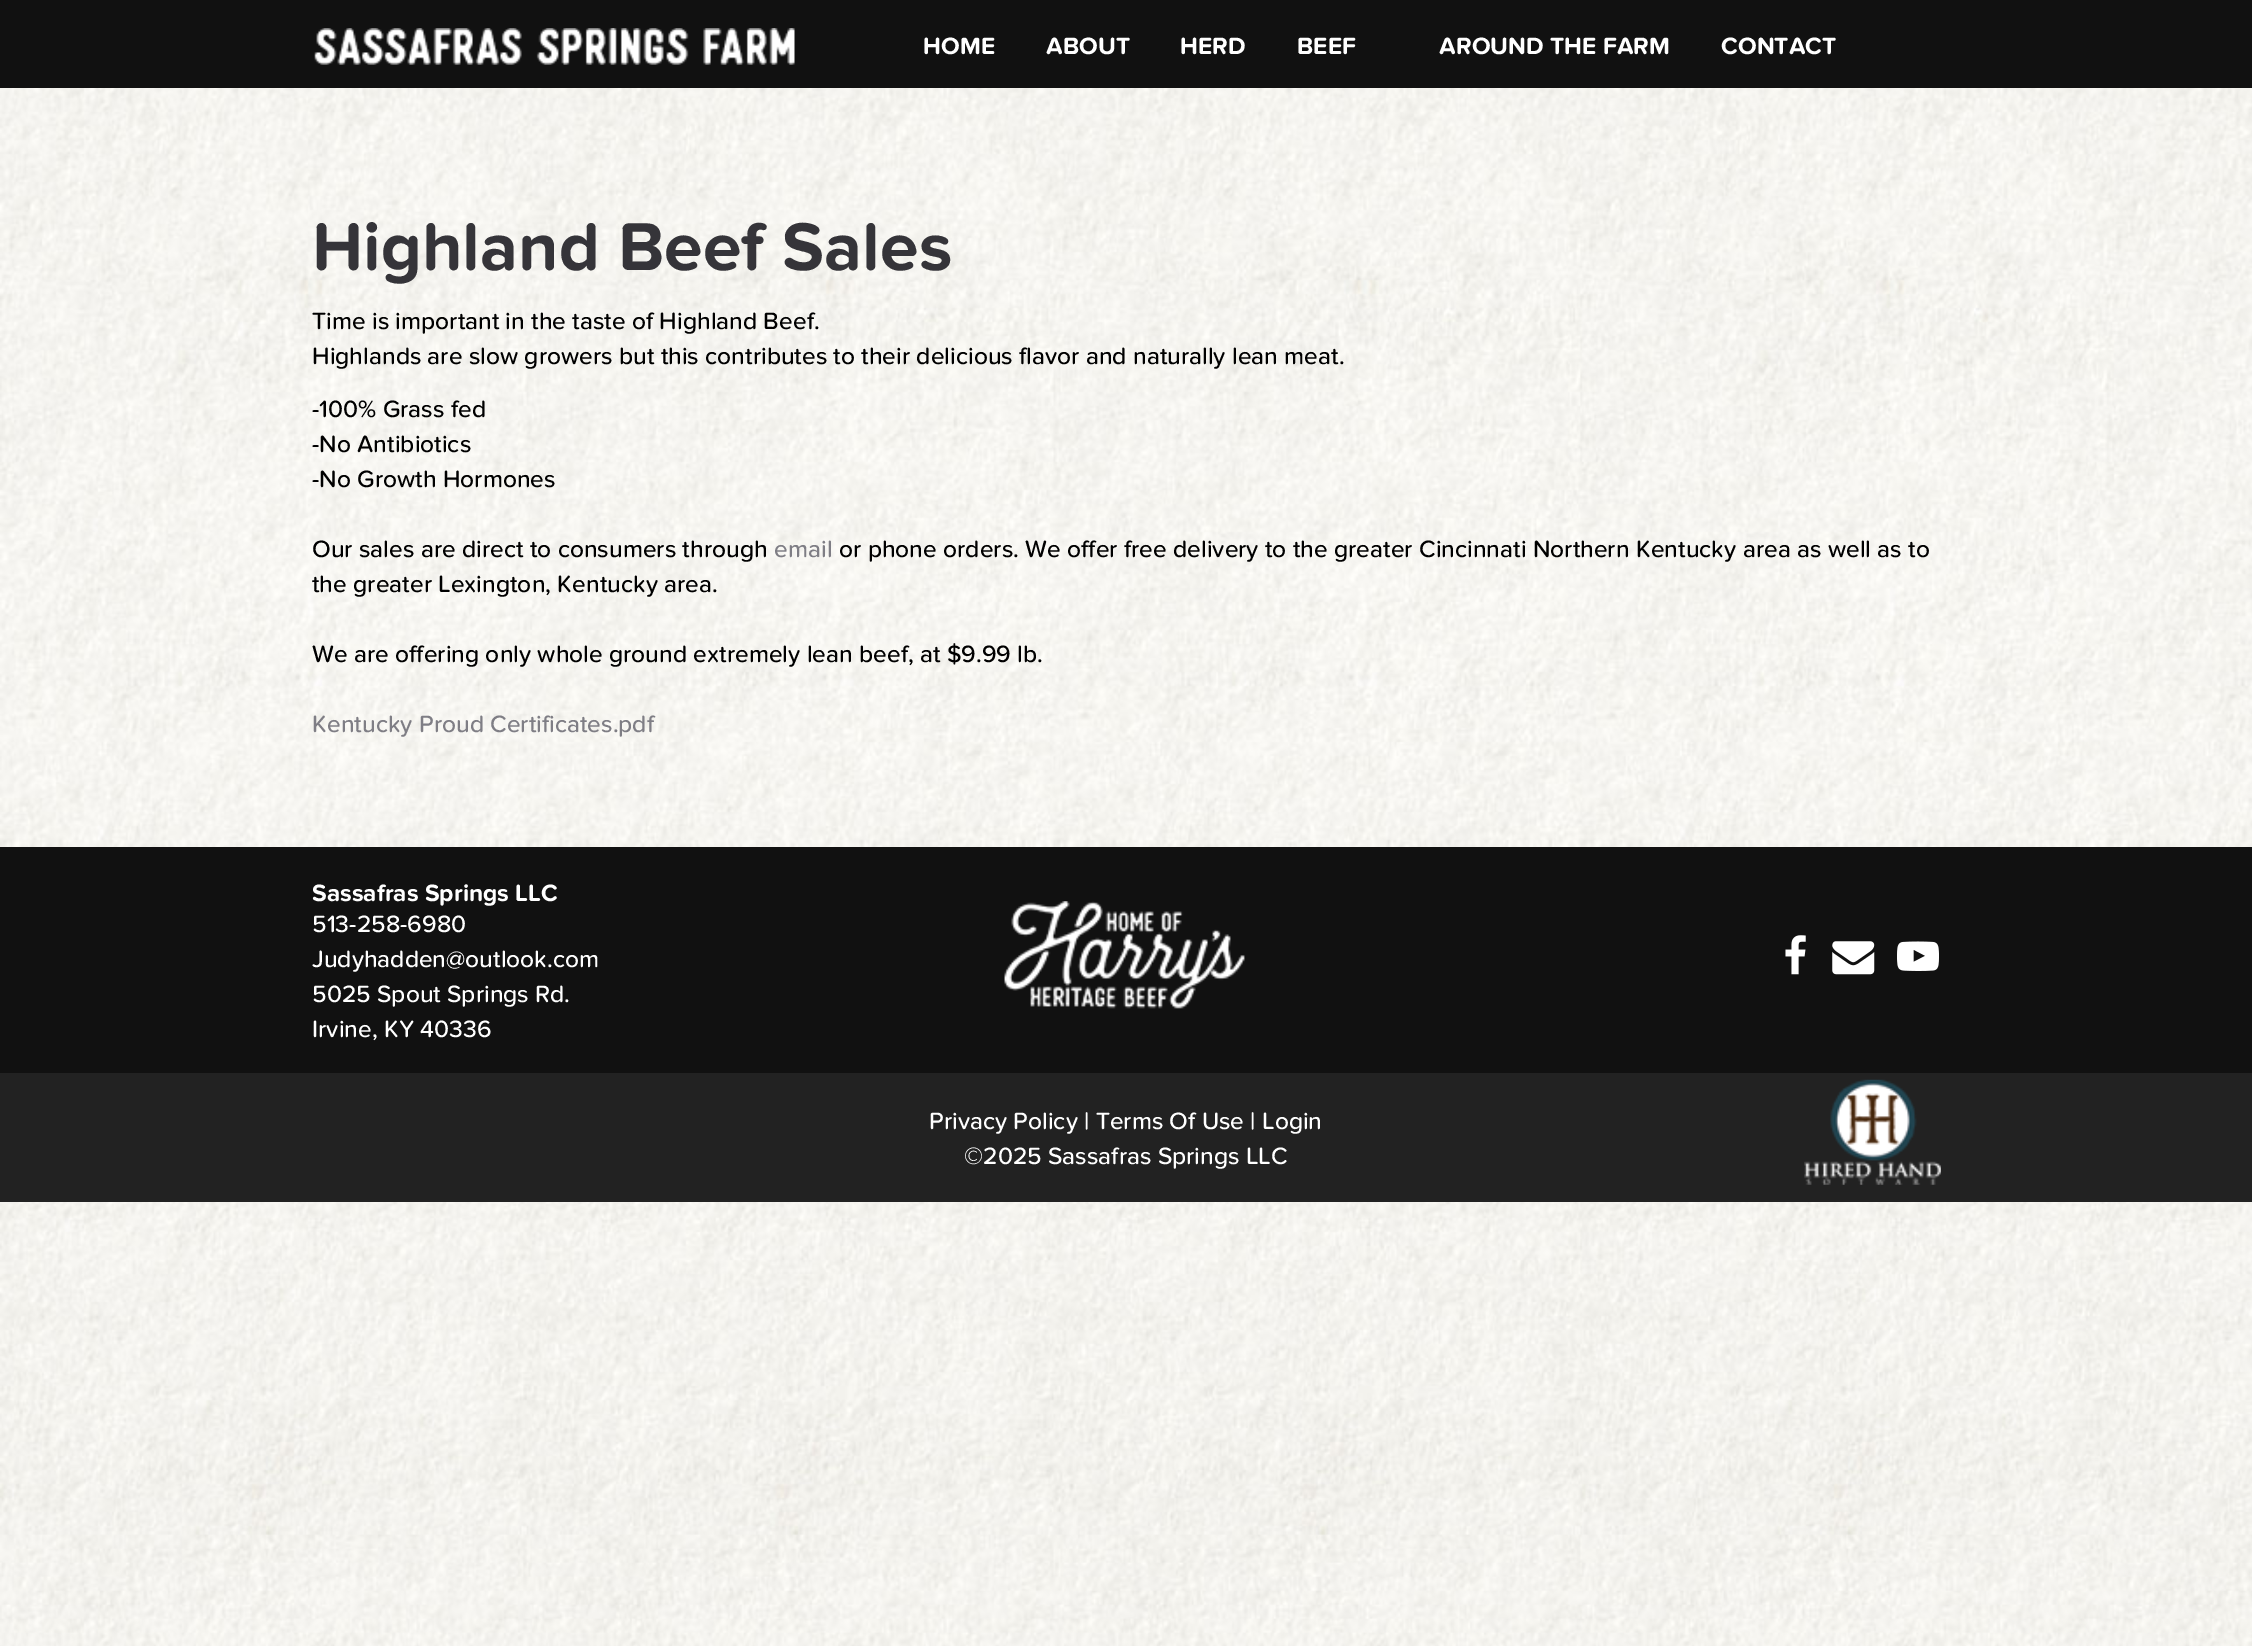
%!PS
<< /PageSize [2252 1646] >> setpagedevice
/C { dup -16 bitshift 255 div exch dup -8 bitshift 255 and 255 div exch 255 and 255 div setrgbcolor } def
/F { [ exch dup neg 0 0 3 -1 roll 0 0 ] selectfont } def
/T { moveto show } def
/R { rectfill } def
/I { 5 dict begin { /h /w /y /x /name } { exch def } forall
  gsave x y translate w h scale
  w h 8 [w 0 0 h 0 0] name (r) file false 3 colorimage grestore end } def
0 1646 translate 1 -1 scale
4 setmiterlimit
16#FFFFFF C
0 0 2252 1646 R
(1.rgb) 0 88 2252 1558 I
16#111111 C
0 0 2252 88 R
(2.rgb) 314 28 481 37 I
/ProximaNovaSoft-Bold 24.5 F
16#FFFFFF C
(HOME) 923 54 T
(ABOUT) 1046 54 T
(HERD) 1180 54 T
(BEEF) 1297 54 T
(AROUND THE FARM) 1439 54 T
(CONTACT) 1721 54 T
/ProximaNovaSoft-Bold 70 F
16#353439 C
(Highland Beef Sales) 312 270 T
/ProximaNovaSoft-Medium 24.5 F
16#000000 C
(Time is important in the taste of Highland Beef.) 312 329 T
(Highlands are slow growers but this contributes to their delicious flavor and naturally lean meat.) 312 364 T
(-100% Grass fed) 312 417 T
(-No Antibiotics) 312 452 T
(-No Growth Hormones) 312 487 T
(Our sales are direct to consumers through) 312 557 T
16#7F7E85 C
(email) 774 557 T
16#000000 C
(or phone orders. We offer free delivery to the greater Cincinnati Northern Kentucky area as well as to) 839 557 T
(the greater Lexington, Kentucky area.) 312 592 T
(We are offering only whole ground extremely lean beef, at $9.99 lb.) 312 662 T
16#7F7E85 C
(Kentucky Proud Certificates.pdf) 312 732 T
16#111111 C
0 847 2252 226 R
/ProximaNovaSoft-Bold 24.5 F
16#FFFFFF C
(Sassafras Springs LLC) 312 901 T
/ProximaNovaSoft-Medium 24.5 F
(513-258-6980) 312 932 T
(Judyhadden@outlook.com) 312 967 T
(5025 Spout Springs Rd.) 312 1002 T
(Irvine, KY 40336) 312 1037 T
(3.rgb) 1004 901 241 108 I
(4.rgb) 1785 935 21 40 I
(5.rgb) 1832 941 43 34 I
(6.rgb) 1897 941 42 30 I
16#222222 C
0 1073 2252 129 R
16#FFFFFF C
(Privacy Policy | Terms Of Use | Login) 929 1129 T
(7.rgb) 1804 1079 137 106 I
(©2025 Sassafras Springs LLC) 964 1164 T
showpage
